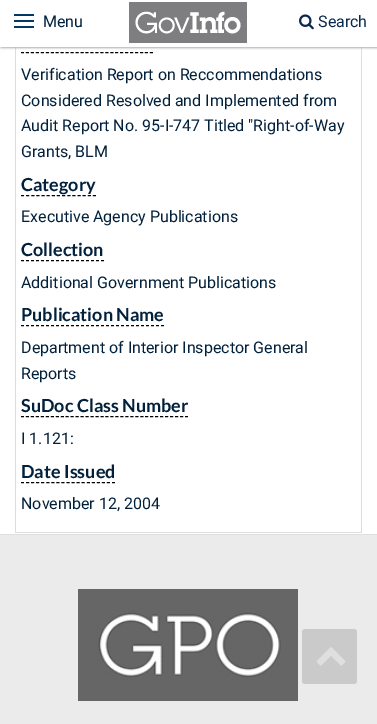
%!PS
<< /PageSize [377 724] /PageUsesTransparency true >> setpagedevice
/m/moveto load def
/l/rlineto load def
/f/fill load def
/s/stroke load def
/C { dup -16 bitshift 255 div exch dup -8 bitshift 255 and 255 div exch 255 and 255 div setrgbcolor } def
/F { [ exch dup neg 0 0 3 -1 roll 0 0 ] selectfont } def
/T { moveto show } def
/R { rectfill } def
/A { dup .setfillconstantalpha .setstrokeconstantalpha } def
/Q { 5 dict begin { /r /h /w /y /x } { exch def } forall
  x r add y moveto x w add y 2 copy h add r arct x w add y h add x 1 index r arct
  x y h add x y r arct x y 2 copy exch w add exch r arct closepath end } def
/S { 12 dict begin { /a /b /q /h /w /y /x } { exch def } forall gsave /was 0 def
  9 -2 -9 { dup b mul 4 div /e exch def 1 sub .425 mul 2.718 exch exp 1 add a .99 .min exch div /now exch def
    1 1 now sub 1 was sub div sub A /was now def
    w h .min e 2 mul add 0 gt { x e sub y e sub w e 2 mul add h e 2 mul add
      q e add b .6 mul add w h .min 2 div e add .min 0 .max Q fill } if } for grestore end } def
/I { 5 dict begin { /h /w /y /x /name } { exch def } forall
  gsave x y translate w h scale
  w h 8 [w 0 0 h 0 0] name (r) file false 3 colorimage grestore end } def
0 .pushpdf14devicefilter
0 724 translate 1 -1 scale
4 setmiterlimit
16#FFFFFF C
0 0 377 724 R
16#DDDDDD C
361 47 1 486 R
15 532 347 1 R
15 47 1 486 R
16#ACACAE C
1 0 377 48 0 1 1 S
16#FFFFFF C
0 0 377 47 R
16#003866 C
14 14 20 2 R
14 20 20 2 R
14 26 20 2 R
/Roboto-Regular 16 F
16#01203B C
(Menu) 43 27 T
(1.rgb) 129 2 118 41 I
(2.rgb) 299 14 15 16 I
16#0B294D C
(Search) 318 27 T
16#000000 C
[3 1.96] 0 setdash
21 52.5 m 132 0 l s
16#01203B C
(Verification Report on Reccommendations) 21 80 T
(Considered Resolved and Implemented from) 21 106 T
(Audit Report No. 95-I-747 Titled "Right-of-Way) 21 131 T
(Grants, BLM) 21 157 T
/Lato-Bold 18 F
(Category) 21 191 T
16#000000 C
[3 2.14] 0 setdash
21 195.5 m 75 0 l s
/Roboto-Regular 16 F
16#01203B C
(Executive Agency Publications) 21 222 T
/Lato-Bold 18 F
(Collection) 21 256 T
16#000000 C
[3 2] 0 setdash
21 260.5 m 83 0 l s
/Roboto-Regular 16 F
16#01203B C
(Additional Government Publications) 21 288 T
/Lato-Bold 18 F
(Publication Name) 21 321 T
16#000000 C
21 325.5 m 143 0 l s
/Roboto-Regular 16 F
16#01203B C
(Department of Interior Inspector General) 21 353 T
(Reports) 21 379 T
/Lato-Bold 18 F
(SuDoc Class Number) 21 412 T
16#000000 C
[3 1.97] 0 setdash
21 416.5 m 167 0 l s
/Roboto-Regular 16 F
16#01203B C
(I 1.121:) 21 444 T
/Lato-Bold 18 F
(Date Issued) 21 478 T
16#000000 C
[3 2.06] 0 setdash
21 482.5 m 94 0 l s
/Roboto-Regular 16 F
16#01203B C
(November 12, 2004) 21 509 T
16#EBEBEB C
0 535 377 189 R
16#DEDFE1 C
0 534 377 1 R
(3.rgb) 78 589 220 112 I
16#CACACA C
302 629 55 55 3 Q f
(4.rgb) 316 647 30 19 I
.poppdf14devicefilter showpage
